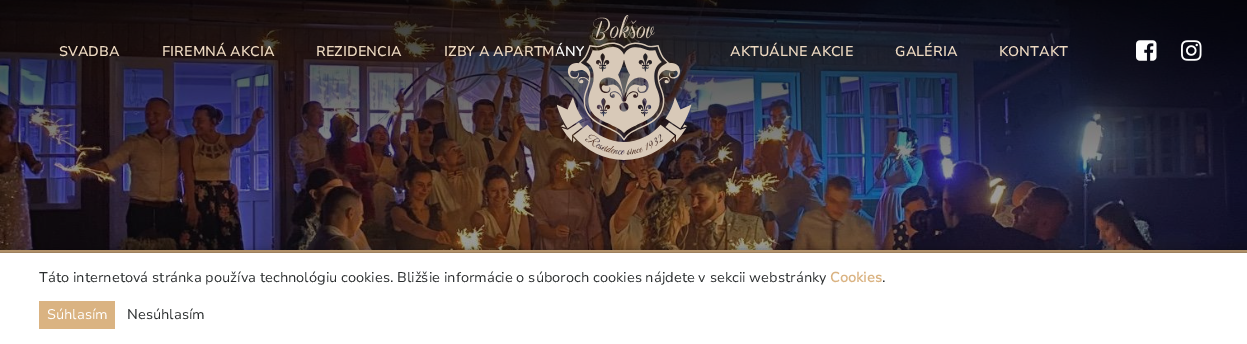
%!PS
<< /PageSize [1247 344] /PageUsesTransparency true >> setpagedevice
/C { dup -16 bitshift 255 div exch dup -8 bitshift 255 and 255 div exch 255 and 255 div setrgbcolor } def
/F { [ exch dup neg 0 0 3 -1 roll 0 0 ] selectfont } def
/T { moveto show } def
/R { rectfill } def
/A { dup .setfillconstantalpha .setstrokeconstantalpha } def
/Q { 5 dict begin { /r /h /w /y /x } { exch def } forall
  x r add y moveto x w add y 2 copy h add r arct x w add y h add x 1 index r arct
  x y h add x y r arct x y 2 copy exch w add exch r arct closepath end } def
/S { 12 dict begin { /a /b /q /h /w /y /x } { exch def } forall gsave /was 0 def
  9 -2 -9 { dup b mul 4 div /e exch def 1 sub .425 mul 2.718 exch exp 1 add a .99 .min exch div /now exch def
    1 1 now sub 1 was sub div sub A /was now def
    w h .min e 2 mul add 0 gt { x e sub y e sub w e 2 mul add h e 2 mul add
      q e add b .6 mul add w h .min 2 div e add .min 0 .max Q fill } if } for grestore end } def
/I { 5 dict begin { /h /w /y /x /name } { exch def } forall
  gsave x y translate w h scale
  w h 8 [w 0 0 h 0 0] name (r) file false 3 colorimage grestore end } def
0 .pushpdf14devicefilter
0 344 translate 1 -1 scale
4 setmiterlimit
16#FFFFFF C
0 0 1247 344 R
(1.rgb) 0 0 1247 250 I
/NunitoSans-SemiBold 14 F
16#EDD9C1 C
(IZBY A APARTMÁNY) 444 56 T
(2.rgb) 557 15 135 145 I
(SVADBA) 59 56 T
(FIREMNÁ AKCIA) 162 56 T
(REZIDENCIA) 316 56 T
(AKTUÁLNE AKCIE) 730 56 T
(GALÉRIA) 895 56 T
(KONTAKT) 999 56 T
(3.rgb) 1136 40 21 21 I
(4.rgb) 1181 40 21 21 I
16#DAB382 C
0 250 1247 3 R
16#000000 C
-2 251 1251 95 0 4 .4 S
16#FFFFFF C
0 253 1247 91 R
/NunitoSans-Regular 14 F
16#2C2F30 C
(Táto internetová stránka používa technológiu cookies. Bližšie informácie o súboroch cookies nájdete v sekcii webstránky) 39 282 T
/NunitoSans-Bold 14 F
16#DAB382 C
(Cookies) 830 282 T
/NunitoSans-Regular 14 F
16#2C2F30 C
(.) 882 282 T
16#DAB382 C
39 301 76 28 R
16#FFFFFF C
(Súhlasím) 47 319 T
16#2C2F30 C
(Nesúhlasím) 127 319 T
.poppdf14devicefilter showpage
